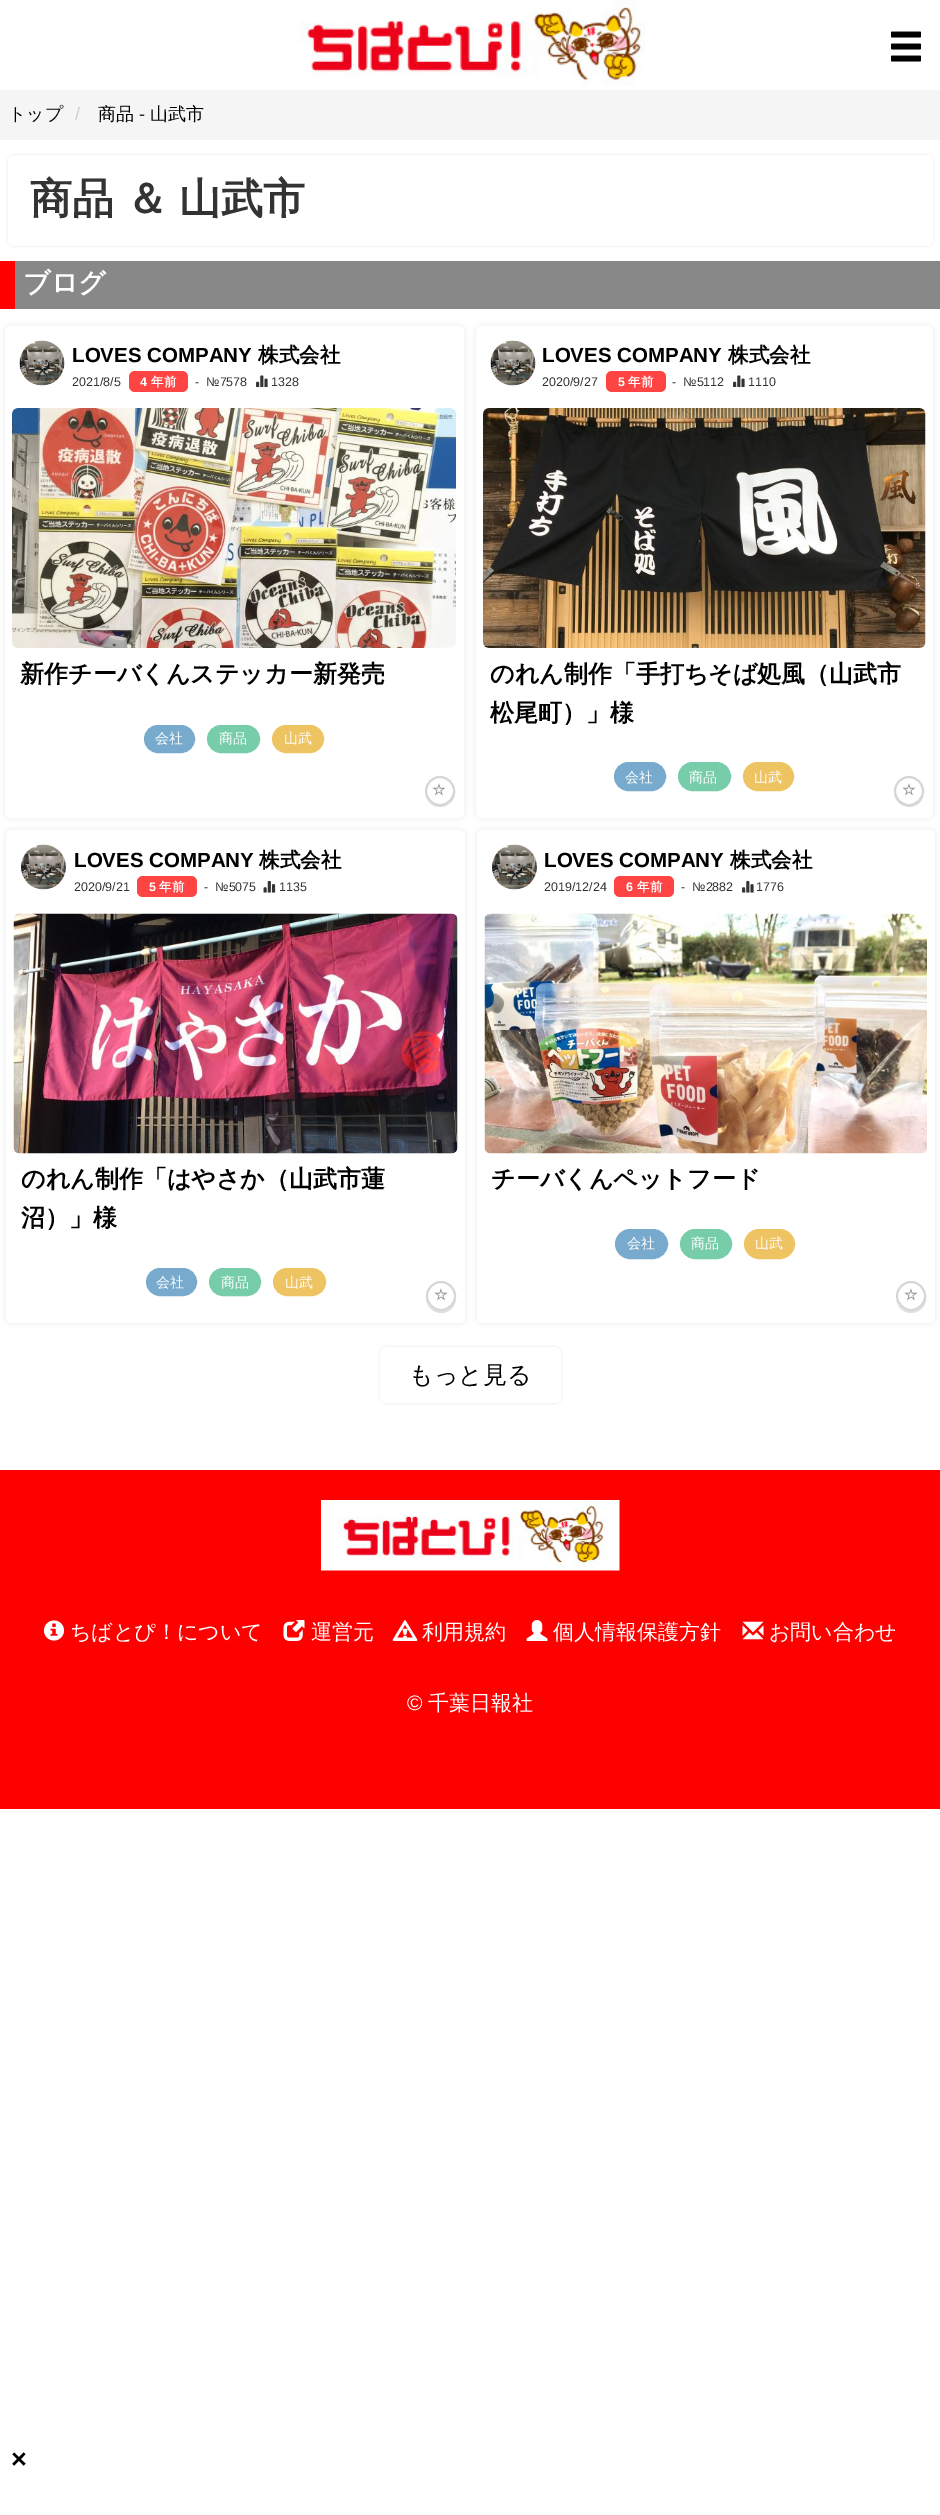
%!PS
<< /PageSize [940 2515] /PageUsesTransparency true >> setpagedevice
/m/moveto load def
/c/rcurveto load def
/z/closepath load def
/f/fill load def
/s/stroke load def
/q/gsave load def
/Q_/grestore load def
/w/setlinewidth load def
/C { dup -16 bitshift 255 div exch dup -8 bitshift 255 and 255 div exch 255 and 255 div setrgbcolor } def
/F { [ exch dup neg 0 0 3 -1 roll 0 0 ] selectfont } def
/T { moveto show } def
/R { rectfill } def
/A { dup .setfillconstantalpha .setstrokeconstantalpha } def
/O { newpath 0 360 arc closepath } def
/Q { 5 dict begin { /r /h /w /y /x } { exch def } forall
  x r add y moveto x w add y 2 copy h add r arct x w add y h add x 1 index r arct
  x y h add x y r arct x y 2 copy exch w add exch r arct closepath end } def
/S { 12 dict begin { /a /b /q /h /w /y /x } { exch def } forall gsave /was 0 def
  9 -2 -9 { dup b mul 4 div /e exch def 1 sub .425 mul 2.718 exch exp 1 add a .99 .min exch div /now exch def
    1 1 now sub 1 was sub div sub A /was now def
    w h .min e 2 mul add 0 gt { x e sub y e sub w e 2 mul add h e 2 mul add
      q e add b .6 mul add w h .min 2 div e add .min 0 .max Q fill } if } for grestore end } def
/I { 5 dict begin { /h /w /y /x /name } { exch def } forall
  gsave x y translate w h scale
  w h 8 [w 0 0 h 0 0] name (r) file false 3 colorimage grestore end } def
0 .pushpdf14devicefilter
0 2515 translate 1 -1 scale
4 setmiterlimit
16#FFFFFF C
0 0 940 2515 R
(1.rgb) 300 0 346 86 I
(2.rgb) 891 31 30 31 I
16#F5F5F5 C
0 90 940 50 R
/WenQuanYiZenHei-Medium 18 F
16#000000 C
(トップ) 8 120 T
/LiberationSans-Regular 18 F
16#CCCCCC C
(/) 75 120 T
/WenQuanYiZenHei-Medium 18 F
16#000000 C
(商品) 98 120 T
/LiberationSans-Regular 18 F
16#333333 C
(-) 139 120 T
/WenQuanYiZenHei-Medium 18 F
16#000000 C
(山武市) 150 120 T
16#C49985 C
8 155 925 91 6 1.5 .3 S
16#FFFFFF C
8 155 925 91 6 Q f
/WenQuanYiZenHei-Bold 42 F
16#333333 C
(商品) 30 213 T
(＆) 126 213 T
(山武市) 179 213 T
16#888888 C
15 261 925 48 R
16#FF0000 C
0 261 15 48 R
/WenQuanYiZenHei-Bold 27 F
16#FFFFFF C
(ブログ) 23 292 T
16#8C8C8C C
5 326 459 492 6 3 .2 S
16#FFFFFF C
5 326 459 492 6 Q f
(3.rgb) 19 340 46 46 I
/LiberationSans-Bold 20.5 F
16#000000 C
(LOVES COMPANY) 72 362 T
/WenQuanYiZenHei-Bold 20.5 F
(株式会社) 258 362 T
/LiberationSans-Regular 12.5 F
16#333333 C
(2021/8/5) 72 386 T
16#FF4444 C
129 371 59 21 6 Q f
/LiberationSans-Bold 12.5 F
16#FFFFFF C
(4) 140 386 T
/WenQuanYiZenHei-Bold 12.5 F
(年前) 151 386 T
/LiberationSans-Regular 12.5 F
16#333333 C
(-  №7578) 195 386 T
(4.rgb) 256 375 12 12 I
(1328) 271 386 T
(5.rgb) 12 408 444 240 I
/WenQuanYiZenHei-Bold 24 F
16#000000 C
(新作チーバくんステッカー新発売) 20 682 T
16#77AACC C
145 726 49 26 13 Q q f Q_
2 w
s
/WenQuanYiZenHei-Medium 14 F
16#FFFFFF C
(会社) 155 743 T
16#77CCAA C
208 726 51 26 13 Q q f Q_
s
16#FFFFFF C
(商品) 219 743 T
16#EEC362 C
273 726 50 26 13 Q q f Q_
s
16#FFFFFF C
(山武) 284 743 T
16#E0E0E0 C
425.5 796 m 1 3 3 6 5.5 8 c 12 9 28.5 -3.5 23 -17.5 c 5 18 -21.5 27 -28.5 9.5 c z f
16#FFFFFF C
440 791 14 O q f Q_
16#D6D6D6 C
s
/DejaVuSans-Bold 15 F
16#929292 C
(☆) 432 795 T
16#8C8C8C C
476 326 457 492 6 3 .2 S
16#FFFFFF C
476 326 457 492 6 Q f
(6.rgb) 490 340 46 46 I
/LiberationSans-Bold 20.5 F
16#000000 C
(LOVES COMPANY) 542 362 T
/WenQuanYiZenHei-Bold 20.5 F
(株式会社) 728 362 T
/LiberationSans-Regular 12.5 F
16#333333 C
(2020/9/27) 542 386 T
16#FF4444 C
606 371 60 21 6 Q f
/LiberationSans-Bold 12.5 F
16#FFFFFF C
(5) 618 386 T
/WenQuanYiZenHei-Bold 12.5 F
(年前) 628 386 T
/LiberationSans-Regular 12.5 F
16#333333 C
(-  №5112) 672 386 T
(4.rgb) 733 375 12 12 I
(1110) 748 386 T
(7.rgb) 483 408 443 240 I
/WenQuanYiZenHei-Bold 24 F
16#000000 C
(のれん制作「手打ちそば処風（山武市) 490 682 T
(松尾町）」様) 490 721 T
16#77AACC C
615 763 50 27 13.5 Q q f Q_
s
/WenQuanYiZenHei-Medium 14 F
16#FFFFFF C
(会社) 625 782 T
16#77CCAA C
679 763 51 27 13.5 Q q f Q_
s
16#FFFFFF C
(商品) 689 782 T
16#EEC362 C
744 763 49 27 13.5 Q q f Q_
s
16#FFFFFF C
(山武) 754 782 T
16#E0E0E0 C
894 791 m -.5 15.5 19 22 27.5 9.5 c 1.5 -3 2.5 -6 2.5 -9.5 c -1 19 -29 19 -30 0 c z f
16#FFFFFF C
909 791 14 O q f Q_
16#D6D6D6 C
s
/DejaVuSans-Bold 15 F
16#929292 C
(☆) 902 795 T
16#8C8C8C C
6 830 459 493 6 3 .2 S
16#FFFFFF C
6 830 459 493 6 Q f
(8.rgb) 21 844 45 46 I
/LiberationSans-Bold 20.5 F
16#000000 C
(LOVES COMPANY) 74 867 T
/WenQuanYiZenHei-Bold 20.5 F
(株式会社) 259 867 T
/LiberationSans-Regular 12.5 F
16#333333 C
(2020/9/21) 74 891 T
16#FF4444 C
137 876 60 21 6 Q f
/LiberationSans-Bold 12.5 F
16#FFFFFF C
(5) 149 891 T
/WenQuanYiZenHei-Bold 12.5 F
(年前) 159 891 T
/LiberationSans-Regular 12.5 F
16#333333 C
(-  №5075) 204 891 T
(9.rgb) 263 880 13 13 I
(1135) 279 891 T
(10.rgb) 13 913 445 241 I
/WenQuanYiZenHei-Bold 24 F
16#000000 C
(のれん制作「はやさか（山武市蓮) 21 1187 T
(沼）」様) 21 1226 T
16#77AACC C
147 1269 49 26 13 Q q f Q_
s
/WenQuanYiZenHei-Medium 14 F
16#FFFFFF C
(会社) 156 1287 T
16#77CCAA C
210 1269 50 26 13 Q q f Q_
s
16#FFFFFF C
(商品) 221 1287 T
16#EEC362 C
274 1269 51 26 13 Q q f Q_
s
16#FFFFFF C
(山武) 285 1287 T
16#E0E0E0 C
426 1297 m -1 15 19 22 27.5 9.5 c 2 -3 2.5 -6 2.5 -9.5 c -1 18.5 -29 18.5 -30 0 c z f
16#FFFFFF C
441 1296 14 O q f Q_
16#D6D6D6 C
s
/DejaVuSans-Bold 15 F
16#929292 C
(☆) 434 1300 T
16#8C8C8C C
477 830 458 493 6 3 .2 S
16#FFFFFF C
477 830 458 493 6 Q f
(11.rgb) 492 844 45 46 I
/LiberationSans-Bold 20.5 F
16#000000 C
(LOVES COMPANY) 544 867 T
/WenQuanYiZenHei-Bold 20.5 F
(株式会社) 730 867 T
/LiberationSans-Regular 12.5 F
16#333333 C
(2019/12/24) 544 891 T
16#FF4444 C
614 876 60 21 6 Q f
/LiberationSans-Bold 12.5 F
16#FFFFFF C
(6) 626 891 T
/WenQuanYiZenHei-Bold 12.5 F
(年前) 637 891 T
/LiberationSans-Regular 12.5 F
16#333333 C
(-  №2882) 681 891 T
(12.rgb) 742 880 12 13 I
(1776) 756 891 T
(13.rgb) 484 913 443 241 I
/WenQuanYiZenHei-Bold 24 F
16#000000 C
(チーバくんペットフード) 491 1187 T
16#77AACC C
616 1230 51 28 14 Q q f Q_
s
/WenQuanYiZenHei-Medium 14 F
16#FFFFFF C
(会社) 627 1248 T
16#77CCAA C
681 1230 50 28 14 Q q f Q_
s
16#FFFFFF C
(商品) 691 1248 T
16#EEC362 C
745 1230 49 28 14 Q q f Q_
s
16#FFFFFF C
(山武) 755 1248 T
16#E0E0E0 C
896 1300.5 m 1 3.5 2.5 6.5 5.5 9 c 11.5 9.5 28.5 -2 24 -16 c 3 18 -23.5 24.5 -29.5 7 c z f
16#FFFFFF C
911 1296 14 O q f Q_
16#D6D6D6 C
s
/DejaVuSans-Bold 15 F
16#929292 C
(☆) 904 1300 T
16#C49985 C
380 1347 181 56 6 1.5 .3 S
16#FFFFFF C
380 1347 181 56 6 Q f
/WenQuanYiZenHei-Medium 24 F
16#000000 C
(もっと見る) 409 1383 T
16#FF0000 C
0 1470 940 339 R
(14.rgb) 321 1500 299 71 I
(15.rgb) 43 1620 22 21 I
/WenQuanYiZenHei-Medium 21 F
16#FFFFFF C
(ちばとぴ！について) 70 1639 T
(16.rgb) 283 1620 22 21 I
(運営元) 311 1639 T
(17.rgb) 392 1620 26 21 I
(利用規約) 422 1639 T
(18.rgb) 526 1620 22 21 I
(個人情報保護方針) 553 1639 T
(19.rgb) 742 1621 22 19 I
(お問い合わせ) 769 1639 T
/LiberationSans-Regular 21 F
(©) 407 1710 T
/WenQuanYiZenHei-Medium 21 F
(千葉日報社) 428 1710 T
/LiberationSans-Bold 27 F
16#000000 C
(×) 11 2468 T
.poppdf14devicefilter showpage
